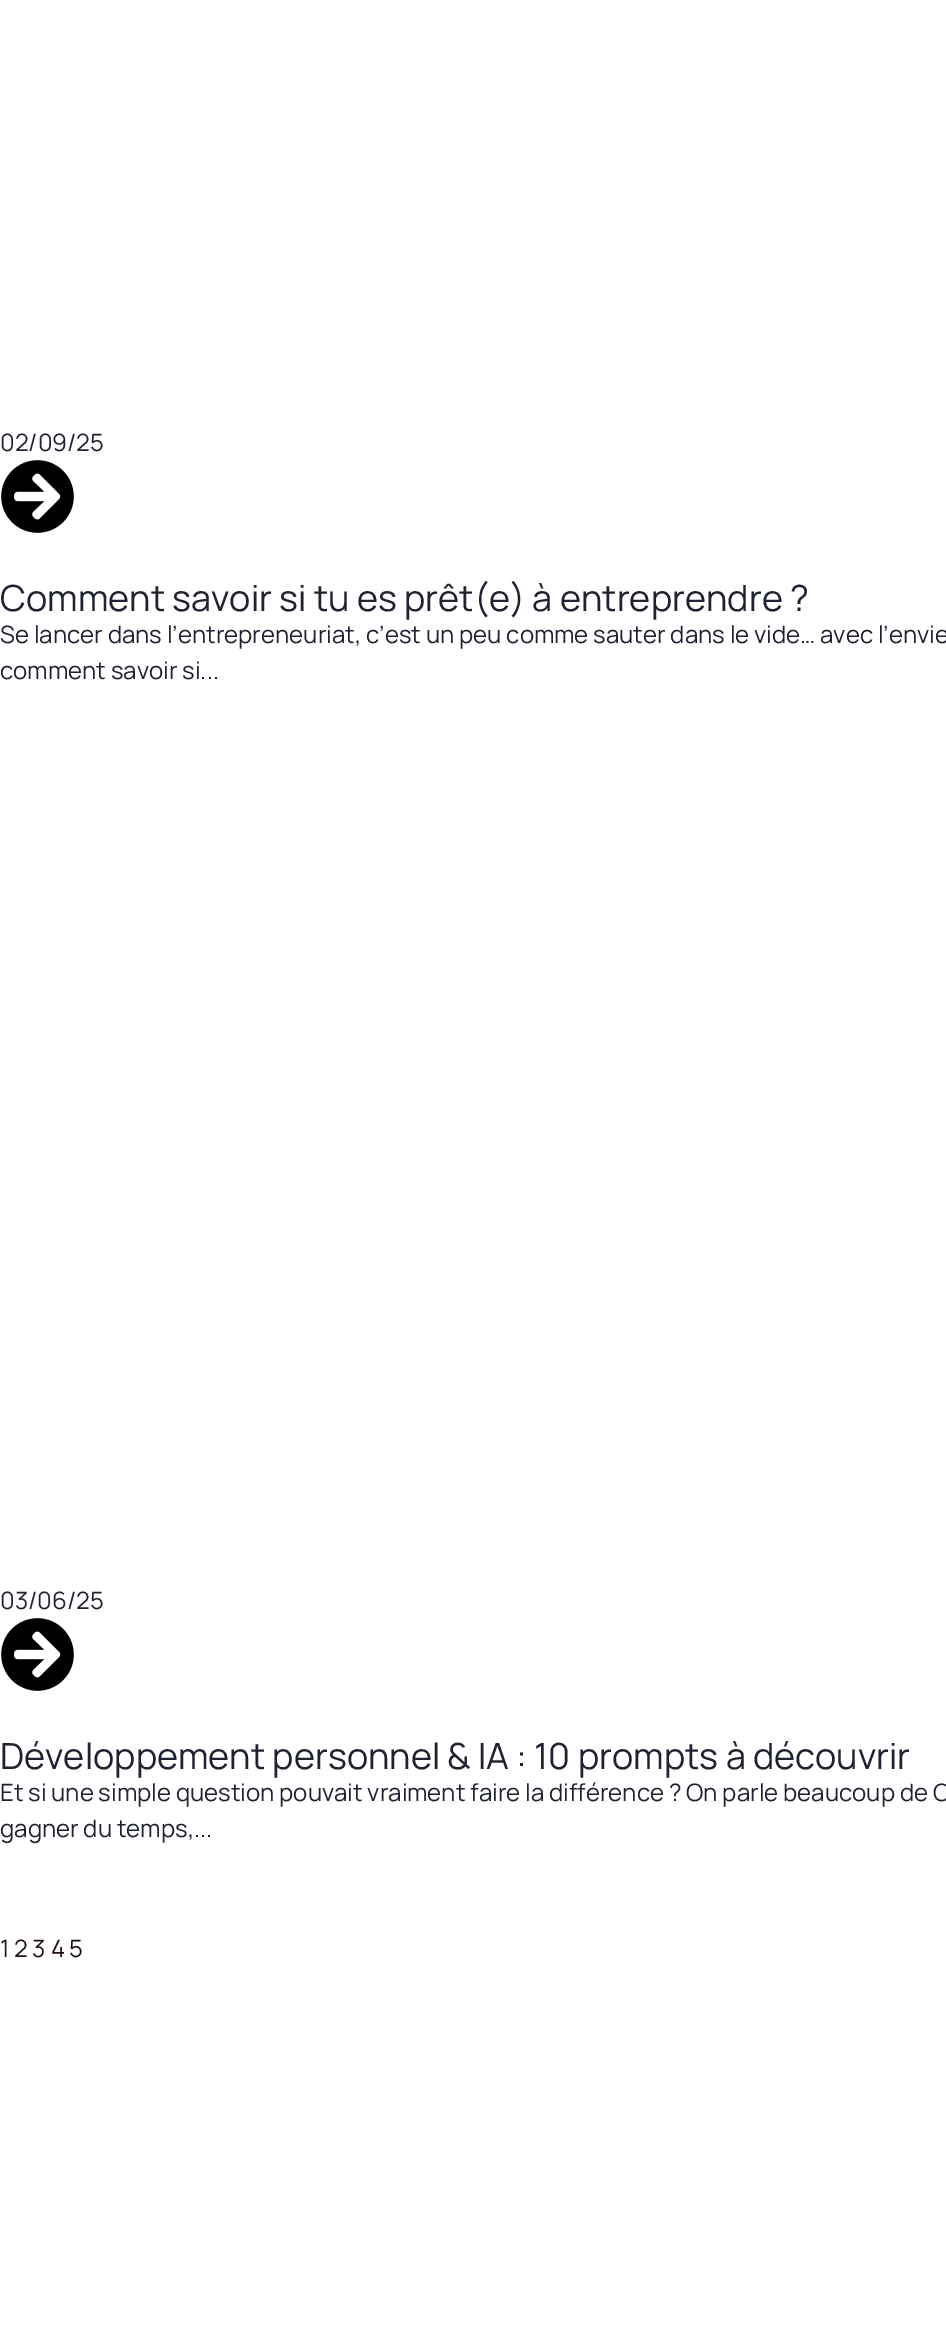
%!PS
<< /PageSize [946 2338] >> setpagedevice
/C { dup -16 bitshift 255 div exch dup -8 bitshift 255 and 255 div exch 255 and 255 div setrgbcolor } def
/F { [ exch dup neg 0 0 3 -1 roll 0 0 ] selectfont } def
/T { moveto show } def
/R { rectfill } def
/I { 5 dict begin { /h /w /y /x /name } { exch def } forall
  gsave x y translate w h scale
  w h 8 [w 0 0 h 0 0] name (r) file false 3 colorimage grestore end } def
0 2338 translate 1 -1 scale
4 setmiterlimit
16#FFFFFF C
0 0 946 2338 R
/Manrope-Regular 24 F
16#1F2231 C
(02/09/25) 0 451 T
(1.rgb) 1 460 73 73 I
/Manrope-Regular 36 F
(Comment savoir si tu es prêt\(e\) à entreprendre ?) 0 611 T
/Manrope-Regular 24 F
(Se lancer dans l’entrepreneuriat, c’est un peu comme sauter dans le vide… avec l’envie) 0 643 T
(comment savoir si...) 0 679 T
(03/06/25) 0 1609 T
(1.rgb) 1 1618 73 73 I
/Manrope-Regular 36 F
(Développement personnel & IA : 10 prompts à découvrir) 0 1769 T
/Manrope-Regular 24 F
(Et si une simple question pouvait vraiment faire la différence ? On parle beaucoup de C) 0 1801 T
(gagner du temps,...) 0 1837 T
(1) 0 1957 T
16#200C1F C
(2 3 4 5) 14 1957 T
showpage
